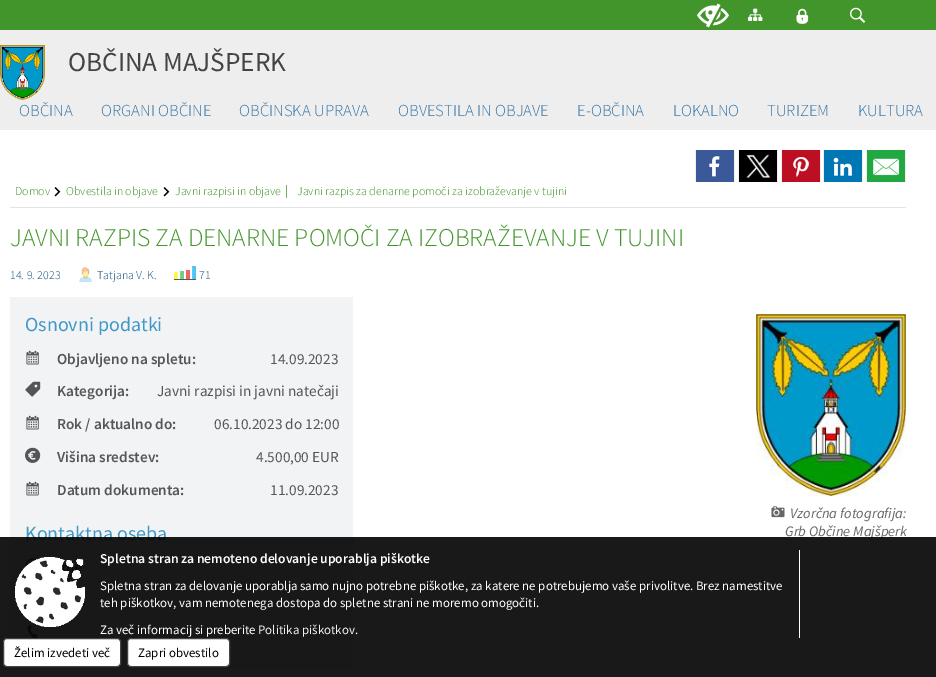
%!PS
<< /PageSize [936 677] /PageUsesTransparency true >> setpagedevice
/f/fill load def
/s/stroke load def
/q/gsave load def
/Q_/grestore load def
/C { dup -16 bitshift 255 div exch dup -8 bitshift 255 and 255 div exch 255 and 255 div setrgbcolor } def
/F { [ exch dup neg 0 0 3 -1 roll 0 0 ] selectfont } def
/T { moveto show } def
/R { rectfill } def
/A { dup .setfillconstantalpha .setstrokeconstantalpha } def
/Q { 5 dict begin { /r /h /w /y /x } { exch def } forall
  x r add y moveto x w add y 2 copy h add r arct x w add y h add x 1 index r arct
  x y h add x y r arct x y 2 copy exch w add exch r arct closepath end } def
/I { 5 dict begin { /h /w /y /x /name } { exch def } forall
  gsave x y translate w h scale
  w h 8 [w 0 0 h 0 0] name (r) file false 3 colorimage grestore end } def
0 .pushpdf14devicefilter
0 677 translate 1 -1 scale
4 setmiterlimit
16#FFFFFF C
0 0 936 677 R
16#EEEEEE C
0 30 936 100 R
16#42952A C
0 0 936 30 R
(1.rgb) 697 3 32 25 I
(2.rgb) 748 8 15 13 I
(3.rgb) 796 8 13 16 I
(4.rgb) 850 7 16 16 I
(5.rgb) 0 45 45 55 I
/SourceSansPro-Regular 27.25 F
16#444444 C
(OBČINA MAJŠPERK) 68 71 T
/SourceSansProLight-Light 16.75 F
16#3B77A8 C
(OBČINA) 19 116 T
(ORGANI OBČINE) 101 116 T
(OBČINSKA UPRAVA) 239 116 T
(OBVESTILA IN OBJAVE) 398 116 T
(E-OBČINA) 577 116 T
(LOKALNO) 673 116 T
(TURIZEM) 767 116 T
(KULTURA) 858 116 T
16#EFEFEF C
695 150 40 32 R
(6.rgb) 696 150 38 32 I
738 150 40 32 R
(7.rgb) 739 150 38 32 I
781 150 40 32 R
(8.rgb) 782 150 38 32 I
823 150 40 32 R
(9.rgb) 824 150 38 32 I
866 150 40 32 R
(10.rgb) 867 150 38 32 I
16#E3E4E5 C
10 207 896 1 R
/SourceSansProLight-Light 12 F
16#42952A C
(Domov) 15 195 T
(11.rgb) 54 187 7 10 I
(Obvestila in objave) 66 195 T
(11.rgb) 163 187 7 10 I
(Javni razpisi in objave) 175 195 T
q
283 180 284 18 rectclip
/LiberationSerif-Regular 16 F
(|) 285 196 T
Q_
(Javni razpis za denarne pomoči za izobraževanje v tujini) 297 195 T
/SourceSansProLight-Light 25.6 F
(JAVNI RAZPIS ZA DENARNE POMOČI ZA IZOBRAŽEVANJE V TUJINI) 10 246 T
/SourceSansProLight-Light 12 F
16#14527D C
(14. 9. 2023) 10 279 T
(12.rgb) 79 267 13 15 I
(Tatjana V. K.) 97 279 T
(13.rgb) 174 266 22 14 I
(71) 199 279 T
16#F2F3F5 C
10 297 343 372 R
/SourceSansPro-Regular 20 F
16#4098C6 C
(Osnovni podatki) 25 331 T
(14.rgb) 26 350 13 15 I
/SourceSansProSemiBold-SemiBold 15.25 F
16#555555 C
(Objavljeno na spletu:) 57 364 T
/SourceSansPro-Regular 15.25 F
(14.09.2023) 270 364 T
(15.rgb) 25 381 16 16 I
/SourceSansProSemiBold-SemiBold 15.25 F
(Kategorija:) 57 396 T
/SourceSansPro-Regular 15.25 F
(Javni razpisi in javni natečaji) 157 396 T
(14.rgb) 26 415 13 15 I
/SourceSansProSemiBold-SemiBold 15.25 F
(Rok / aktualno do:) 57 429 T
/SourceSansPro-Regular 15.25 F
(06.10.2023 do 12:00) 214 429 T
(16.rgb) 25 447 16 16 I
/SourceSansProSemiBold-SemiBold 15.25 F
(Višina sredstev:) 57 462 T
/SourceSansPro-Regular 15.25 F
(4.500,00 EUR) 256 462 T
(14.rgb) 26 481 13 15 I
/SourceSansProSemiBold-SemiBold 15.25 F
(Datum dokumenta:) 57 495 T
/SourceSansPro-Regular 15.25 F
(11.09.2023) 270 495 T
/SourceSansPro-Regular 20 F
16#4098C6 C
(Kontaktna oseba) 25 540 T
(17.rgb) 25 558 12 9 I
(18.rgb) 27 624 11 14 I
(19.rgb) 756 314 150 182 I
(20.rgb) 771 506 14 12 I
/SourceSansPro-Italic 14.5 F
16#666666 C
(Vzorčna fotografija:) 790 518 T
(Grb Občine Majšperk) 785 536 T
0.9 A
16#000000 C
0 537 936 140 R
1 A
(21.rgb) 15 557 70 70 I
16#FFFFFF C
799 550 1 88 R
/SourceSansProSemiBold-SemiBold 13.6 F
(Spletna stran za nemoteno delovanje uporablja piškotke) 100 563 T
/SourceSansPro-Regular 12.92 F
(Spletna stran za delovanje uporablja samo nujno potrebne piškotke, za katere ne potrebujemo vaše privolitve. Brez namestitve) 100 590 T
(teh piškotkov, vam nemotenega dostopa do spletne strani ne moremo omogočiti.) 100 607 T
(Za več informacij si preberite) 100 634 T
16#EEEEEE C
(Politika piškotkov) 258 634 T
16#FFFFFF C
(.) 355 634 T
3.5 638.5 117 28 3.5 Q q f Q_
16#444444 C
s
16#000000 C
(Želim izvedeti več) 14 657 T
16#FFFFFF C
127.5 638.5 102 28 3.5 Q q f Q_
16#444444 C
s
16#000000 C
(Zapri obvestilo) 138 657 T
.poppdf14devicefilter showpage
